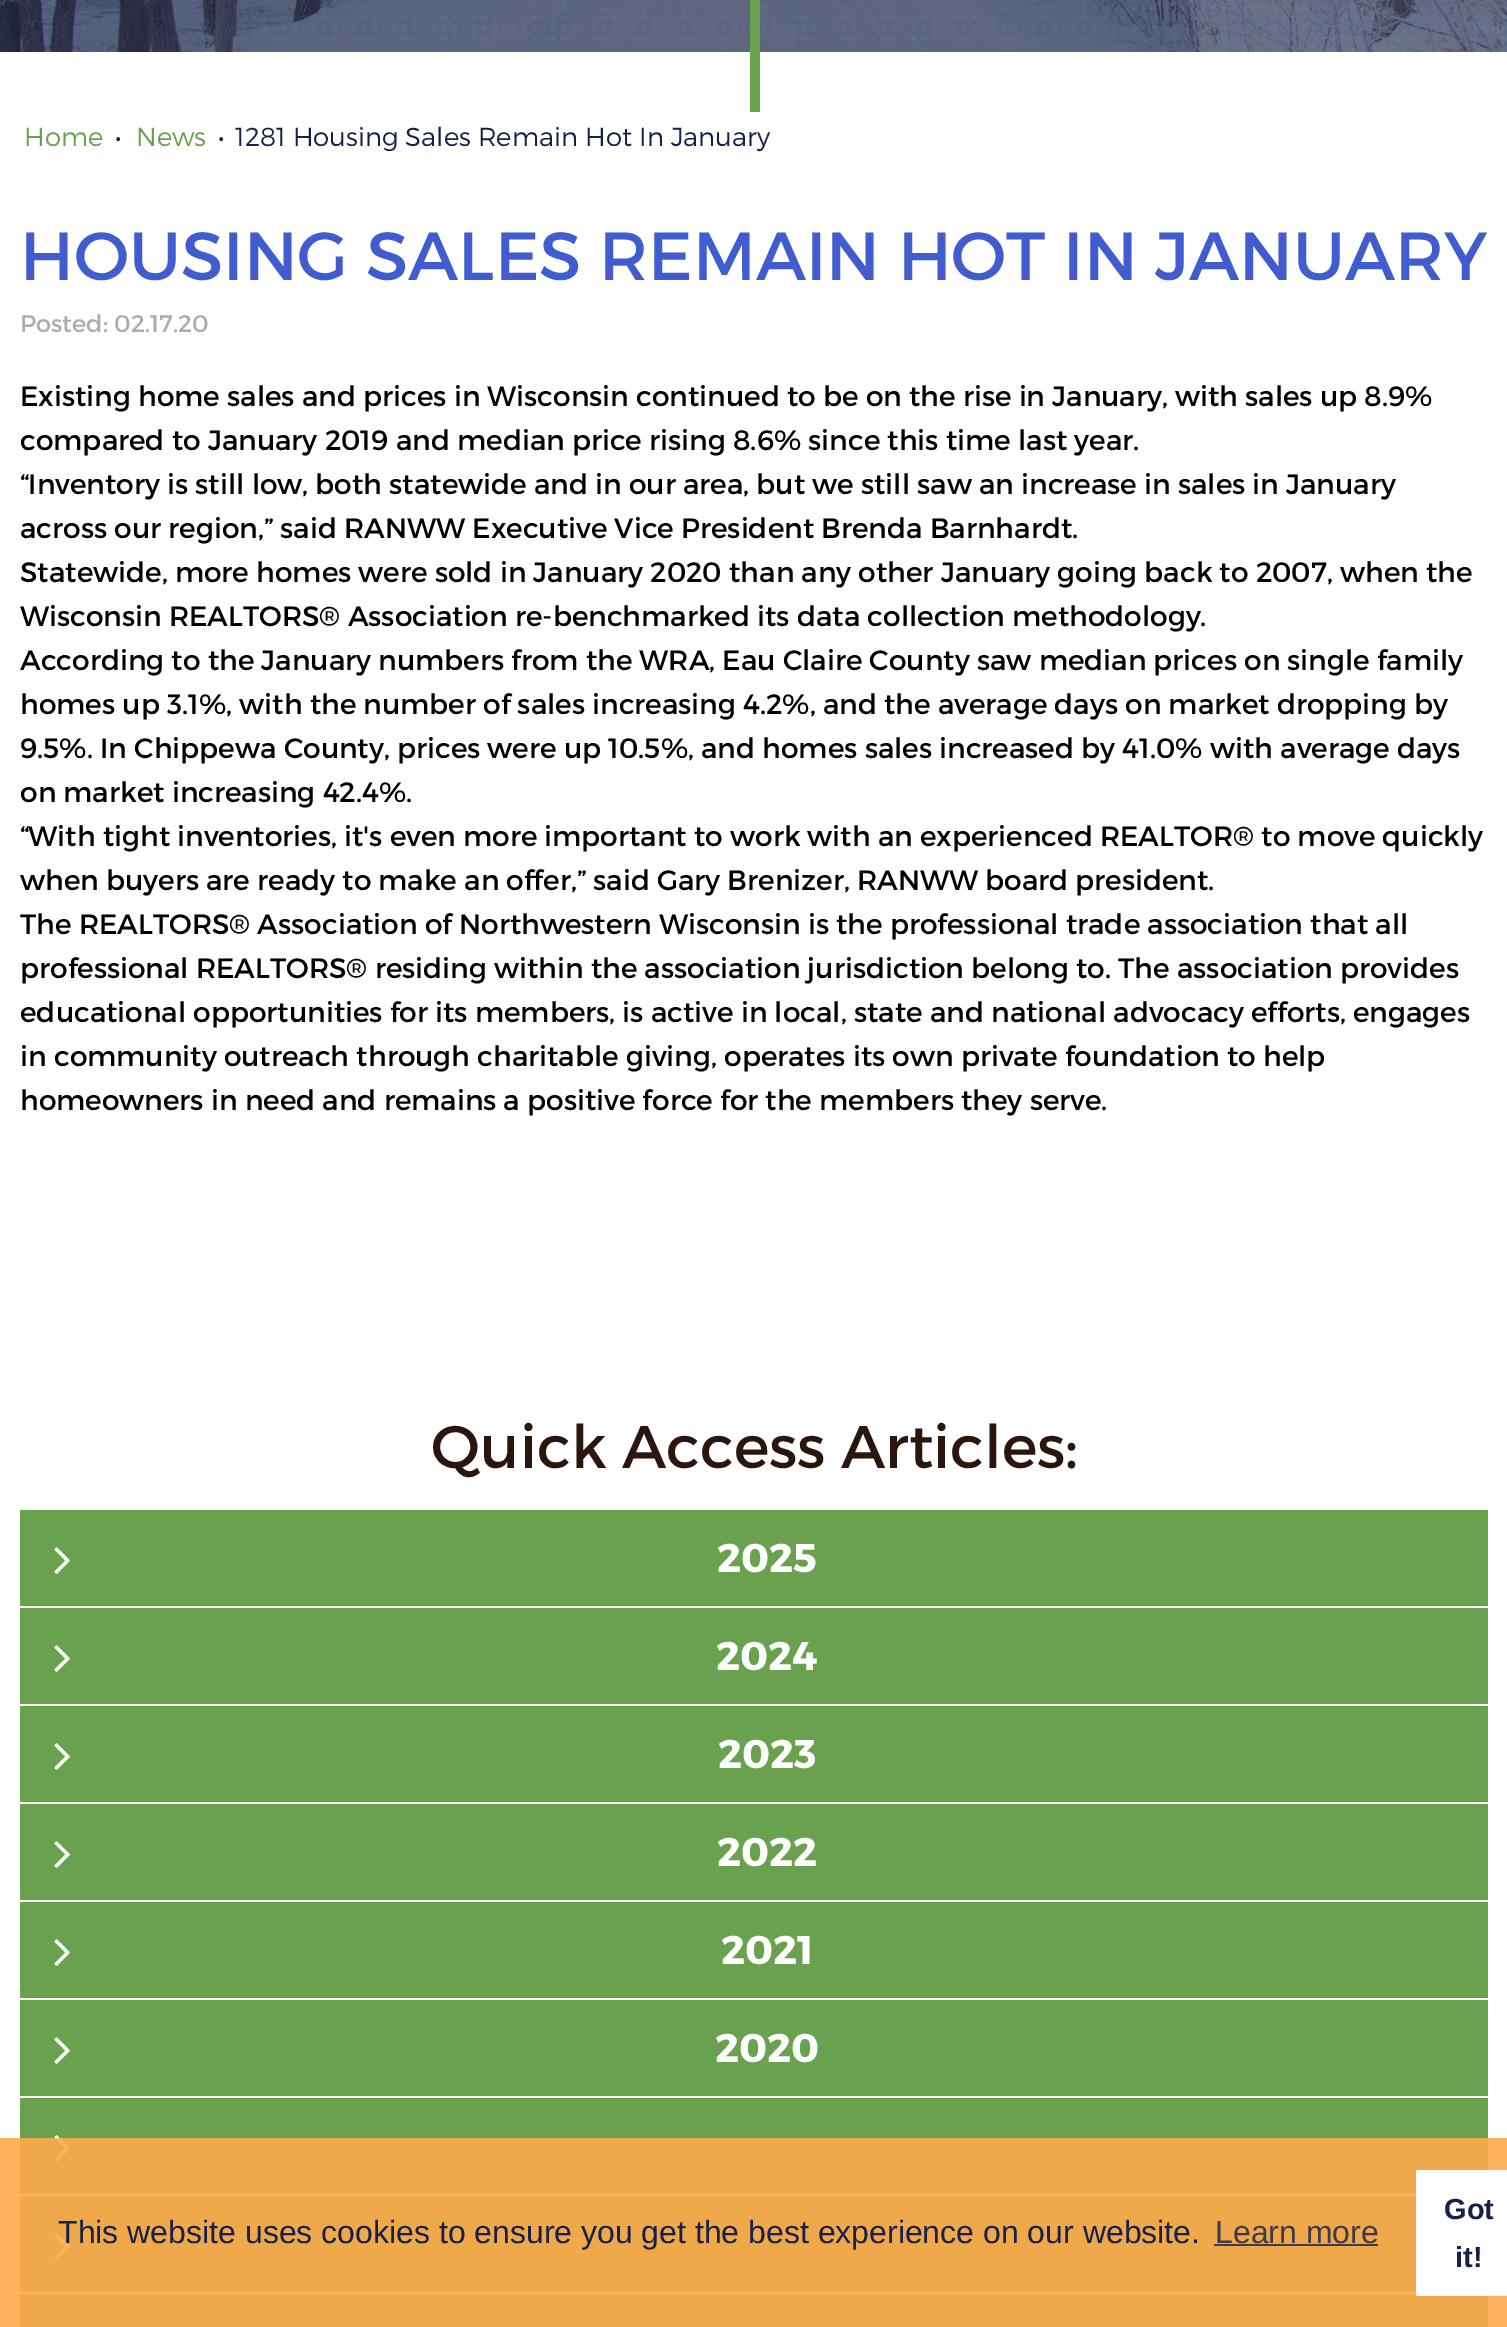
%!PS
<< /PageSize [1507 2327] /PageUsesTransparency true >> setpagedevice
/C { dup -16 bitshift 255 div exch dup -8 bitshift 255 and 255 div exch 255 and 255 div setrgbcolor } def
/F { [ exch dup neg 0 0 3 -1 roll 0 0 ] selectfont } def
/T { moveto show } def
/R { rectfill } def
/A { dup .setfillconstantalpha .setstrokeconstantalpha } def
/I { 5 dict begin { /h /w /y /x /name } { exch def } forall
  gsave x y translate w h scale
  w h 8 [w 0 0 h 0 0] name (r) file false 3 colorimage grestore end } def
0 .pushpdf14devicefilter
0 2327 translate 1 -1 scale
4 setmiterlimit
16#FFFFFF C
0 0 1507 2327 R
(1.rgb) 0 0 1507 52 I
(2.rgb) 3 0 1504 52 I
16#69A14E C
750 0 10 112 R
(3.rgb) 1188 0 319 52 I
/Montserrat-Light 26 F
(Home) 24 146 T
16#1B2631 C
(•) 115 146 T
16#69A14E C
(News) 136 146 T
16#1B2631 C
(•) 218 146 T
16#162048 C
(1281 Housing Sales Remain Hot In January) 235 146 T
/Montserrat-Regular 68 F
16#415CCE C
(HOUSING SALES REMAIN HOT IN JANUARY) 20 280 T
/Montserrat-Regular 24 F
16#ACACAC C
(Posted: 02.17.20) 20 332 T
/Montserrat-Regular 28 F
16#000000 C
(Existing home sales and prices in Wisconsin continued to be on the rise in January, with sales up 8.9%) 20 406 T
(compared to January 2019 and median price rising 8.6% since this time last year.) 20 450 T
(“Inventory is still low, both statewide and in our area, but we still saw an increase in sales in January) 20 494 T
(across our region,” said RANWW Executive Vice President Brenda Barnhardt.) 20 538 T
(Statewide, more homes were sold in January 2020 than any other January going back to 2007, when the) 20 582 T
(Wisconsin REALTORS® Association re-benchmarked its data collection methodology.) 20 626 T
(According to the January numbers from the WRA, Eau Claire County saw median prices on single family) 20 670 T
(homes up 3.1%, with the number of sales increasing 4.2%, and the average days on market dropping by) 20 714 T
(9.5%. In Chippewa County, prices were up 10.5%, and homes sales increased by 41.0% with average days) 20 758 T
(on market increasing 42.4%.) 20 802 T
(“With tight inventories, it's even more important to work with an experienced REALTOR® to move quickly) 20 846 T
(when buyers are ready to make an offer,” said Gary Brenizer, RANWW board president.) 20 890 T
(The REALTORS® Association of Northwestern Wisconsin is the professional trade association that all) 20 934 T
(professional REALTORS® residing within the association jurisdiction belong to. The association provides) 20 978 T
(educational opportunities for its members, is active in local, state and national advocacy efforts, engages) 20 1022 T
(in community outreach through charitable giving, operates its own private foundation to help) 20 1066 T
(homeowners in need and remains a positive force for the members they serve.) 20 1110 T
/Montserrat-Regular 60 F
16#2A160E C
(Quick Access Articles:) 431 1468 T
16#69A14E C
20 1510 1468 96 R
(4.rgb) 54 1547 16 27 I
/Montserrat-Bold 40 F
16#FFFFFF C
(2025) 717 1572 T
16#69A14E C
20 1608 1468 96 R
(4.rgb) 54 1645 16 27 I
16#FFFFFF C
(2024) 716 1670 T
16#69A14E C
20 1706 1468 96 R
(4.rgb) 54 1743 16 27 I
16#FFFFFF C
(2023) 718 1768 T
16#69A14E C
20 1804 1468 96 R
(4.rgb) 54 1841 16 27 I
16#FFFFFF C
(2022) 717 1866 T
16#69A14E C
20 1902 1468 96 R
(4.rgb) 54 1939 16 27 I
16#FFFFFF C
(2021) 721 1964 T
16#69A14E C
20 2000 1468 96 R
(4.rgb) 54 2037 16 27 I
16#FFFFFF C
(2020) 715 2062 T
16#69A14E C
20 2098 1468 96 R
(4.rgb) 54 2135 16 27 I
20 2196 1396 96 R
(4.rgb) 54 2233 16 27 I
20 2294 1468 33 R
0.9 A
16#FEAA4B C
0 2138 1507 189 R
/LiberationSans-Regular 32 F
1 A
16#162048 C
(This website uses cookies to ensure you get the best experience on our website.) 58 2243 T
16#413B49 C
(Learn more) 1215 2243 T
1214 2244 164 2 R
16#FFFFFF C
1416 2170 91 126 R
/LiberationSans-Bold 29 F
16#162048 C
(Got) 1444 2219 T
(it!) 1455 2267 T
.poppdf14devicefilter showpage
